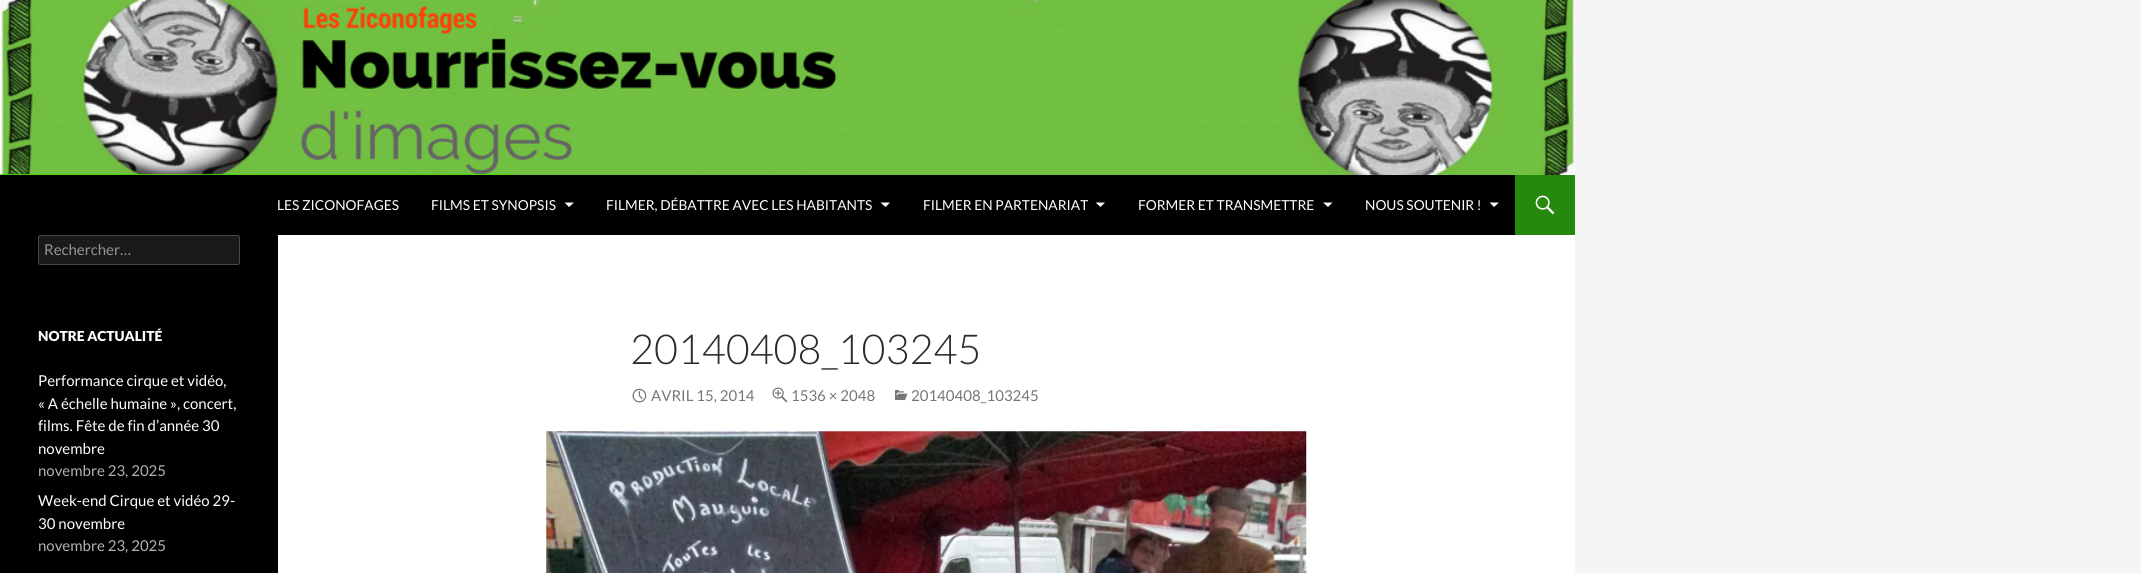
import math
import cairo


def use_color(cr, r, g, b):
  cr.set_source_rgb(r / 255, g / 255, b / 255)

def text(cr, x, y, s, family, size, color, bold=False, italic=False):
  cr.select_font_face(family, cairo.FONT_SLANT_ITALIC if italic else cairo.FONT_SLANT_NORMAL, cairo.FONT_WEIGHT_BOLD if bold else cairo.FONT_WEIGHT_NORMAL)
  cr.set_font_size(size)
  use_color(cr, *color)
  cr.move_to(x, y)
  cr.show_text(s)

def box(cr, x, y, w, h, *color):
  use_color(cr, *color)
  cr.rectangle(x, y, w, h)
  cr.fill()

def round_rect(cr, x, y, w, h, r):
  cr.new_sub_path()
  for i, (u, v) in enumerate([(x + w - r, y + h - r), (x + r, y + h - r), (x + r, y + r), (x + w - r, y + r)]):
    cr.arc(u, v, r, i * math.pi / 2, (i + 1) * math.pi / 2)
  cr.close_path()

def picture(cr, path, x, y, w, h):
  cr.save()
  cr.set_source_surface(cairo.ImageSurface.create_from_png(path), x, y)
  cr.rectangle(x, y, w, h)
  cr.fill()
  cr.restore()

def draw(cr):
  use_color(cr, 245, 245, 245)
  cr.paint()
  box(cr, 278, 235, 1297, 338, 255, 255, 255)
  picture(cr, "img_01.png", 0, 0, 1575, 175)
  box(cr, 0, 175, 1515, 60, 0, 0, 0)
  use_color(cr, 255, 255, 255)
  cr.new_path()
  cr.move_to(564.5, 202.5)
  cr.line_to(574, 202.5)
  cr.line_to(569, 207)
  cr.close_path()
  cr.fill()
  cr.new_path()
  cr.move_to(880.5, 202.5)
  cr.line_to(890, 202.5)
  cr.line_to(885.5, 207)
  cr.close_path()
  cr.fill()
  cr.new_path()
  cr.move_to(1095.5, 202.5)
  cr.line_to(1105, 202.5)
  cr.line_to(1100.5, 207)
  cr.close_path()
  cr.fill()
  cr.new_path()
  cr.move_to(1323, 202.5)
  cr.line_to(1332.5, 202.5)
  cr.line_to(1328, 207)
  cr.close_path()
  cr.fill()
  cr.new_path()
  cr.move_to(1489.5, 202.5)
  cr.line_to(1499, 202.5)
  cr.line_to(1494, 207)
  cr.close_path()
  cr.fill()
  box(cr, 1515, 175, 60, 60, 36, 137, 13)
  picture(cr, "img_02.png", 1535, 195, 20, 20)
  box(cr, 0, 235, 278, 338, 0, 0, 0)
  use_color(cr, 26, 26, 26)
  round_rect(cr, 38, 235, 202, 30, 2.5)
  cr.fill()
  round_rect(cr, 38.5, 235.5, 201, 29, 2)
  cr.set_source_rgba(1, 1, 1, 0.2)
  cr.set_line_width(1)
  cr.stroke()
  picture(cr, "img_03.png", 632, 388, 15, 15)
  picture(cr, "img_04.png", 772, 387, 16, 16)
  picture(cr, "img_05.png", 895, 390, 13, 10)
  picture(cr, "img_06.png", 546, 431, 761, 142)
  text(cr, 277, 210, "LES ZICONOFAGES", "Lato", 13.75, (255, 255, 255))
  text(cr, 431, 210, "FILMS ET SYNOPSIS", "Lato", 13.75, (255, 255, 255))
  text(cr, 606, 210, "FILMER, DÉBATTRE AVEC LES HABITANTS", "Lato", 13.75, (255, 255, 255))
  text(cr, 923, 210, "FILMER EN PARTENARIAT", "Lato", 13.75, (255, 255, 255))
  text(cr, 1138, 210, "FORMER ET TRANSMETTRE", "Lato", 13.75, (255, 255, 255))
  text(cr, 1365, 210, "NOUS SOUTENIR !", "Lato", 13.75, (255, 255, 255))
  text(cr, 44, 255, "Rechercher…", "Lato", 15, (147, 147, 147))
  text(cr, 38, 341, "NOTRE ACTUALITÉ", "Lato Black", 13.75, (255, 255, 255))
  text(cr, 38, 386, "Performance cirque et vidéo,", "Lato", 15, (255, 255, 255))
  text(cr, 38, 409, "« A échelle humaine », concert,", "Lato", 15, (255, 255, 255))
  text(cr, 38, 431, "films. Fête de fin d’année 30", "Lato", 15, (255, 255, 255))
  text(cr, 38, 454, "novembre", "Lato", 15, (255, 255, 255))
  text(cr, 38, 476, "novembre 23, 2025", "Lato", 15, (179, 179, 179))
  text(cr, 38, 506, "Week-end Cirque et vidéo 29-", "Lato", 15, (255, 255, 255))
  text(cr, 38, 529, "30 novembre", "Lato", 15, (255, 255, 255))
  text(cr, 38, 551, "novembre 23, 2025", "Lato", 15, (179, 179, 179))
  text(cr, 630, 364, "20140408_103245", "Lato Light", 41.25, (43, 43, 43))
  text(cr, 651, 401, "AVRIL 15, 2014", "Lato", 15, (118, 118, 118))
  text(cr, 791, 401, "1536 × 2048", "Lato", 15, (118, 118, 118))
  text(cr, 911, 401, "20140408_103245", "Lato", 15, (118, 118, 118))


surface = cairo.ImageSurface(cairo.FORMAT_RGB24, 2141, 573)
cr = cairo.Context(surface)
options = cairo.FontOptions()
options.set_hint_metrics(cairo.HINT_METRICS_OFF)
options.set_hint_style(cairo.HINT_STYLE_NONE)
cr.set_font_options(options)
cr.set_miter_limit(4)
draw(cr)
surface.write_to_png("out.png")
